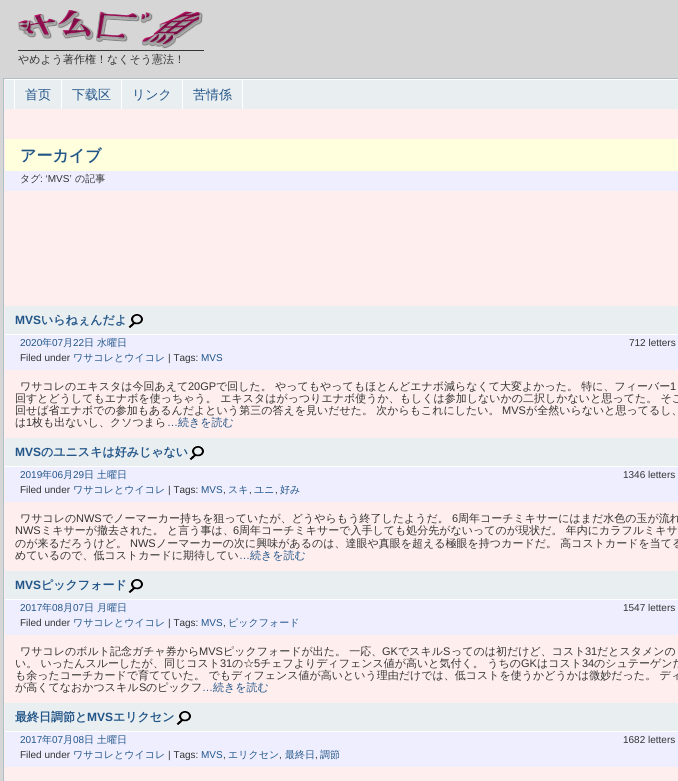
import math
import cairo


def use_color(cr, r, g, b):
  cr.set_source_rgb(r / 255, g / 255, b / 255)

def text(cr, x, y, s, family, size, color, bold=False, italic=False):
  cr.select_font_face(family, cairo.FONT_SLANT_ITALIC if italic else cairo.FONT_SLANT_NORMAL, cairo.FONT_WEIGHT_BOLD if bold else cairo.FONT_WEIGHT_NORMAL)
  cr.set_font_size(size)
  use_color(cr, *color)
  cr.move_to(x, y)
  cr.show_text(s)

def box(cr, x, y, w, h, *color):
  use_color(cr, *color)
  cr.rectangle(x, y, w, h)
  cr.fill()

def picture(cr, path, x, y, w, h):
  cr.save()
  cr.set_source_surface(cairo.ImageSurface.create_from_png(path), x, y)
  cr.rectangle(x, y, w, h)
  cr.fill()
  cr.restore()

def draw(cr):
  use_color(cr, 214, 214, 214)
  cr.paint()
  picture(cr, "img_01.png", 18, 10, 185, 39)
  box(cr, 18, 50, 186, 1, 51, 51, 51)
  use_color(cr, 255, 238, 238)
  cr.rectangle(3.5, 78.5, 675, 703)
  cr.fill_preserve()
  use_color(cr, 176, 190, 199)
  cr.set_line_width(1)
  cr.stroke()
  box(cr, 5, 80, 673, 29, 233, 238, 241)
  box(cr, 5, 79, 673, 1, 255, 255, 255)
  box(cr, 61, 80, 1, 29, 255, 255, 255)
  box(cr, 14, 80, 1, 29, 255, 255, 255)
  box(cr, 121, 80, 1, 29, 255, 255, 255)
  box(cr, 182, 80, 1, 29, 255, 255, 255)
  box(cr, 242, 80, 1, 29, 255, 255, 255)
  box(cr, 5, 139, 673, 32, 255, 255, 221)
  box(cr, 5, 171, 673, 20, 238, 238, 255)
  box(cr, 5, 306, 673, 28, 233, 238, 241)
  box(cr, 5, 334, 673, 1, 255, 255, 255)
  picture(cr, "img_02.png", 128, 314, 15, 14)
  box(cr, 5, 335, 673, 35, 238, 238, 255)
  box(cr, 5, 438, 673, 28, 233, 238, 241)
  box(cr, 5, 466, 673, 1, 255, 255, 255)
  picture(cr, "img_02.png", 189, 446, 15, 14)
  box(cr, 5, 467, 673, 35, 238, 238, 255)
  box(cr, 5, 571, 673, 28, 233, 238, 241)
  box(cr, 5, 599, 673, 1, 255, 255, 255)
  picture(cr, "img_02.png", 128, 579, 15, 14)
  box(cr, 5, 600, 673, 35, 238, 238, 255)
  box(cr, 5, 703, 673, 28, 233, 238, 241)
  box(cr, 5, 731, 673, 1, 255, 255, 255)
  picture(cr, "img_02.png", 176, 711, 15, 14)
  box(cr, 5, 732, 673, 35, 238, 238, 255)
  text(cr, 18, 63, "やめよう著作権！なくそう憲法！", "WenQuanYi Zen Hei Medium", 11, (51, 51, 51))
  text(cr, 25, 99, "首页", "WenQuanYi Zen Hei Medium", 13, (34, 85, 136))
  text(cr, 72, 99, "下载区", "WenQuanYi Zen Hei Medium", 13, (34, 85, 136))
  text(cr, 132, 99, "リンク", "WenQuanYi Zen Hei Medium", 13, (34, 85, 136))
  text(cr, 193, 99, "苦情係", "WenQuanYi Zen Hei Medium", 13, (34, 85, 136))
  text(cr, 20, 161, "アーカイブ", "WenQuanYi Zen Hei", 16, (34, 85, 136), bold=True)
  text(cr, 20, 182, "タグ", "WenQuanYi Zen Hei Medium", 10, (51, 51, 51))
  text(cr, 40, 182, ": ‘MVS’", "Liberation Sans", 10, (51, 51, 51))
  text(cr, 75, 182, "の記事", "WenQuanYi Zen Hei Medium", 10, (51, 51, 51))
  text(cr, 15, 324, "MVS", "Liberation Sans", 12, (34, 85, 136), bold=True)
  text(cr, 41, 324, "いらねぇんだよ", "WenQuanYi Zen Hei", 12, (34, 85, 136), bold=True)
  text(cr, 20, 346, "2020", "Liberation Sans", 10, (34, 85, 136))
  text(cr, 42, 346, "年", "WenQuanYi Zen Hei Medium", 10, (34, 85, 136))
  text(cr, 52, 346, "07", "Liberation Sans", 10, (34, 85, 136))
  text(cr, 63, 346, "月", "WenQuanYi Zen Hei Medium", 10, (34, 85, 136))
  text(cr, 73, 346, "22", "Liberation Sans", 10, (34, 85, 136))
  text(cr, 84, 346, "日 水曜日", "WenQuanYi Zen Hei Medium", 10, (34, 85, 136))
  text(cr, 20, 361, "Filed under", "Liberation Sans", 10, (51, 51, 51))
  text(cr, 73, 361, "ワサコレとウイコレ", "WenQuanYi Zen Hei Medium", 10, (34, 85, 136))
  text(cr, 168, 361, "| Tags:", "Liberation Sans", 10, (51, 51, 51))
  text(cr, 201, 361, "MVS", "Liberation Sans", 10, (34, 85, 136))
  text(cr, 629, 346, "712 letters", "Liberation Sans", 10, (51, 51, 51))
  text(cr, 20, 390, "ワサコレのエキスタは今回あえて", "WenQuanYi Zen Hei Medium", 11, (51, 51, 51))
  text(cr, 188, 390, "20GP", "Liberation Sans", 11, (51, 51, 51))
  text(cr, 216, 390, "で回した。 やってもやってもほとんどエナボ減らなくて大変よかった。 特に、フィーバー", "WenQuanYi Zen Hei Medium", 11, (51, 51, 51))
  text(cr, 670, 390, "1", "Liberation Sans", 11, (51, 51, 51))
  text(cr, 15, 402, "回すとどうしてもエナボを使っちゃう。 エキスタはがっつりエナボ使うか、もしくは参加しないかの二択しかないと思ってた。 そこ", "WenQuanYi Zen Hei Medium", 11, (51, 51, 51))
  text(cr, 15, 414, "回せば省エナボでの参加もあるんだよという第三の答えを見いだせた。 次からもこれにしたい。", "WenQuanYi Zen Hei Medium", 11, (51, 51, 51))
  text(cr, 502, 414, "MVS", "Liberation Sans", 11, (51, 51, 51))
  text(cr, 526, 414, "が全然いらないと思ってるし、", "WenQuanYi Zen Hei Medium", 11, (51, 51, 51))
  text(cr, 15, 426, "は", "WenQuanYi Zen Hei Medium", 11, (51, 51, 51))
  text(cr, 26, 426, "1", "Liberation Sans", 11, (51, 51, 51))
  text(cr, 32, 426, "枚も出ないし、クソつまら", "WenQuanYi Zen Hei Medium", 11, (51, 51, 51))
  text(cr, 167, 426, "…", "Liberation Sans", 11, (34, 85, 136))
  text(cr, 178, 426, "続きを読む", "WenQuanYi Zen Hei Medium", 11, (34, 85, 136))
  text(cr, 15, 456, "MVS", "Liberation Sans", 12, (34, 85, 136), bold=True)
  text(cr, 41, 456, "のユニスキは好みじゃない", "WenQuanYi Zen Hei", 12, (34, 85, 136), bold=True)
  text(cr, 20, 478, "2019", "Liberation Sans", 10, (34, 85, 136))
  text(cr, 42, 478, "年", "WenQuanYi Zen Hei Medium", 10, (34, 85, 136))
  text(cr, 52, 478, "06", "Liberation Sans", 10, (34, 85, 136))
  text(cr, 63, 478, "月", "WenQuanYi Zen Hei Medium", 10, (34, 85, 136))
  text(cr, 73, 478, "29", "Liberation Sans", 10, (34, 85, 136))
  text(cr, 84, 478, "日 土曜日", "WenQuanYi Zen Hei Medium", 10, (34, 85, 136))
  text(cr, 20, 493, "Filed under", "Liberation Sans", 10, (51, 51, 51))
  text(cr, 73, 493, "ワサコレとウイコレ", "WenQuanYi Zen Hei Medium", 10, (34, 85, 136))
  text(cr, 168, 493, "| Tags:", "Liberation Sans", 10, (51, 51, 51))
  text(cr, 201, 493, "MVS", "Liberation Sans", 10, (34, 85, 136))
  text(cr, 223, 493, ",", "Liberation Sans", 10, (51, 51, 51))
  text(cr, 228, 493, "スキ", "WenQuanYi Zen Hei Medium", 10, (34, 85, 136))
  text(cr, 249, 493, ",", "Liberation Sans", 10, (51, 51, 51))
  text(cr, 254, 493, "ユニ", "WenQuanYi Zen Hei Medium", 10, (34, 85, 136))
  text(cr, 275, 493, ",", "Liberation Sans", 10, (51, 51, 51))
  text(cr, 280, 493, "好み", "WenQuanYi Zen Hei Medium", 10, (34, 85, 136))
  text(cr, 623, 478, "1346 letters", "Liberation Sans", 10, (51, 51, 51))
  text(cr, 20, 522, "ワサコレの", "WenQuanYi Zen Hei Medium", 11, (51, 51, 51))
  text(cr, 76, 522, "NWS", "Liberation Sans", 11, (51, 51, 51))
  text(cr, 102, 522, "でノーマーカー持ちを狙っていたが、どうやらもう終了したようだ。", "WenQuanYi Zen Hei Medium", 11, (51, 51, 51))
  text(cr, 452, 522, "6", "Liberation Sans", 11, (51, 51, 51))
  text(cr, 458, 522, "周年コーチミキサーにはまだ水色の玉が流れ", "WenQuanYi Zen Hei Medium", 11, (51, 51, 51))
  text(cr, 15, 534, "NWS", "Liberation Sans", 11, (51, 51, 51))
  text(cr, 41, 534, "ミキサーが撤去された。 と言う事は、", "WenQuanYi Zen Hei Medium", 11, (51, 51, 51))
  text(cr, 233, 534, "6", "Liberation Sans", 11, (51, 51, 51))
  text(cr, 239, 534, "周年コーチミキサーで入手しても処分先がないってのが現状だ。 年内にカラフルミキサ", "WenQuanYi Zen Hei Medium", 11, (51, 51, 51))
  text(cr, 15, 547, "のが来るだろうけど。", "WenQuanYi Zen Hei Medium", 11, (51, 51, 51))
  text(cr, 130, 547, "NWS", "Liberation Sans", 11, (51, 51, 51))
  text(cr, 156, 547, "ノーマーカーの次に興味があるのは、達眼や真眼を超える極眼を持つカードだ。 高コストカードを当てる", "WenQuanYi Zen Hei Medium", 11, (51, 51, 51))
  text(cr, 15, 559, "めているので、低コストカードに期待してい", "WenQuanYi Zen Hei Medium", 11, (51, 51, 51))
  text(cr, 239, 559, "…", "Liberation Sans", 11, (34, 85, 136))
  text(cr, 250, 559, "続きを読む", "WenQuanYi Zen Hei Medium", 11, (34, 85, 136))
  text(cr, 15, 589, "MVS", "Liberation Sans", 12, (34, 85, 136), bold=True)
  text(cr, 41, 589, "ピックフォード", "WenQuanYi Zen Hei", 12, (34, 85, 136), bold=True)
  text(cr, 20, 611, "2017", "Liberation Sans", 10, (34, 85, 136))
  text(cr, 42, 611, "年", "WenQuanYi Zen Hei Medium", 10, (34, 85, 136))
  text(cr, 52, 611, "08", "Liberation Sans", 10, (34, 85, 136))
  text(cr, 63, 611, "月", "WenQuanYi Zen Hei Medium", 10, (34, 85, 136))
  text(cr, 73, 611, "07", "Liberation Sans", 10, (34, 85, 136))
  text(cr, 84, 611, "日 月曜日", "WenQuanYi Zen Hei Medium", 10, (34, 85, 136))
  text(cr, 20, 626, "Filed under", "Liberation Sans", 10, (51, 51, 51))
  text(cr, 73, 626, "ワサコレとウイコレ", "WenQuanYi Zen Hei Medium", 10, (34, 85, 136))
  text(cr, 168, 626, "| Tags:", "Liberation Sans", 10, (51, 51, 51))
  text(cr, 201, 626, "MVS", "Liberation Sans", 10, (34, 85, 136))
  text(cr, 223, 626, ",", "Liberation Sans", 10, (51, 51, 51))
  text(cr, 228, 626, "ピックフォード", "WenQuanYi Zen Hei Medium", 10, (34, 85, 136))
  text(cr, 623, 611, "1547 letters", "Liberation Sans", 10, (51, 51, 51))
  text(cr, 20, 655, "ワサコレのボルト記念ガチャ券から", "WenQuanYi Zen Hei Medium", 11, (51, 51, 51))
  text(cr, 199, 655, "MVS", "Liberation Sans", 11, (51, 51, 51))
  text(cr, 223, 655, "ピックフォードが出た。 一応、", "WenQuanYi Zen Hei Medium", 11, (51, 51, 51))
  text(cr, 382, 655, "GK", "Liberation Sans", 11, (51, 51, 51))
  text(cr, 398, 655, "でスキル", "WenQuanYi Zen Hei Medium", 11, (51, 51, 51))
  text(cr, 443, 655, "S", "Liberation Sans", 11, (51, 51, 51))
  text(cr, 451, 655, "ってのは初だけど、コスト", "WenQuanYi Zen Hei Medium", 11, (51, 51, 51))
  text(cr, 585, 655, "31", "Liberation Sans", 11, (51, 51, 51))
  text(cr, 597, 655, "だとスタメンの", "WenQuanYi Zen Hei Medium", 11, (51, 51, 51))
  text(cr, 15, 667, "い。 いったんスルーしたが、同じコスト", "WenQuanYi Zen Hei Medium", 11, (51, 51, 51))
  text(cr, 220, 667, "31", "Liberation Sans", 11, (51, 51, 51))
  text(cr, 232, 667, "の☆", "WenQuanYi Zen Hei Medium", 11, (51, 51, 51))
  text(cr, 254, 667, "5", "Liberation Sans", 11, (51, 51, 51))
  text(cr, 260, 667, "チェフよりディフェンス値が高いと気付く。 うちの", "WenQuanYi Zen Hei Medium", 11, (51, 51, 51))
  text(cr, 521, 667, "GK", "Liberation Sans", 11, (51, 51, 51))
  text(cr, 537, 667, "はコスト", "WenQuanYi Zen Hei Medium", 11, (51, 51, 51))
  text(cr, 582, 667, "34", "Liberation Sans", 11, (51, 51, 51))
  text(cr, 594, 667, "のシュテーゲンだ", "WenQuanYi Zen Hei Medium", 11, (51, 51, 51))
  text(cr, 15, 679, "も余ったコーチカードで育てていた。 でもディフェンス値が高いという理由だけでは、低コストを使うかどうかは微妙だった。 ディ", "WenQuanYi Zen Hei Medium", 11, (51, 51, 51))
  text(cr, 15, 691, "が高くてなおかつスキル", "WenQuanYi Zen Hei Medium", 11, (51, 51, 51))
  text(cr, 139, 691, "S", "Liberation Sans", 11, (51, 51, 51))
  text(cr, 146, 691, "のピックフ", "WenQuanYi Zen Hei Medium", 11, (51, 51, 51))
  text(cr, 202, 691, "…", "Liberation Sans", 11, (34, 85, 136))
  text(cr, 213, 691, "続きを読む", "WenQuanYi Zen Hei Medium", 11, (34, 85, 136))
  text(cr, 15, 721, "最終日調節と", "WenQuanYi Zen Hei", 12, (34, 85, 136), bold=True)
  text(cr, 87, 721, "MVS", "Liberation Sans", 12, (34, 85, 136), bold=True)
  text(cr, 113, 721, "エリクセン", "WenQuanYi Zen Hei", 12, (34, 85, 136), bold=True)
  text(cr, 20, 743, "2017", "Liberation Sans", 10, (34, 85, 136))
  text(cr, 42, 743, "年", "WenQuanYi Zen Hei Medium", 10, (34, 85, 136))
  text(cr, 52, 743, "07", "Liberation Sans", 10, (34, 85, 136))
  text(cr, 63, 743, "月", "WenQuanYi Zen Hei Medium", 10, (34, 85, 136))
  text(cr, 73, 743, "08", "Liberation Sans", 10, (34, 85, 136))
  text(cr, 84, 743, "日 土曜日", "WenQuanYi Zen Hei Medium", 10, (34, 85, 136))
  text(cr, 20, 758, "Filed under", "Liberation Sans", 10, (51, 51, 51))
  text(cr, 73, 758, "ワサコレとウイコレ", "WenQuanYi Zen Hei Medium", 10, (34, 85, 136))
  text(cr, 168, 758, "| Tags:", "Liberation Sans", 10, (51, 51, 51))
  text(cr, 201, 758, "MVS", "Liberation Sans", 10, (34, 85, 136))
  text(cr, 223, 758, ",", "Liberation Sans", 10, (51, 51, 51))
  text(cr, 228, 758, "エリクセン", "WenQuanYi Zen Hei Medium", 10, (34, 85, 136))
  text(cr, 279, 758, ",", "Liberation Sans", 10, (51, 51, 51))
  text(cr, 285, 758, "最終日", "WenQuanYi Zen Hei Medium", 10, (34, 85, 136))
  text(cr, 315, 758, ",", "Liberation Sans", 10, (51, 51, 51))
  text(cr, 320, 758, "調節", "WenQuanYi Zen Hei Medium", 10, (34, 85, 136))
  text(cr, 623, 743, "1682 letters", "Liberation Sans", 10, (51, 51, 51))


surface = cairo.ImageSurface(cairo.FORMAT_RGB24, 678, 781)
cr = cairo.Context(surface)
options = cairo.FontOptions()
options.set_hint_metrics(cairo.HINT_METRICS_OFF)
options.set_hint_style(cairo.HINT_STYLE_NONE)
cr.set_font_options(options)
cr.set_miter_limit(4)
draw(cr)
surface.write_to_png("out.png")
